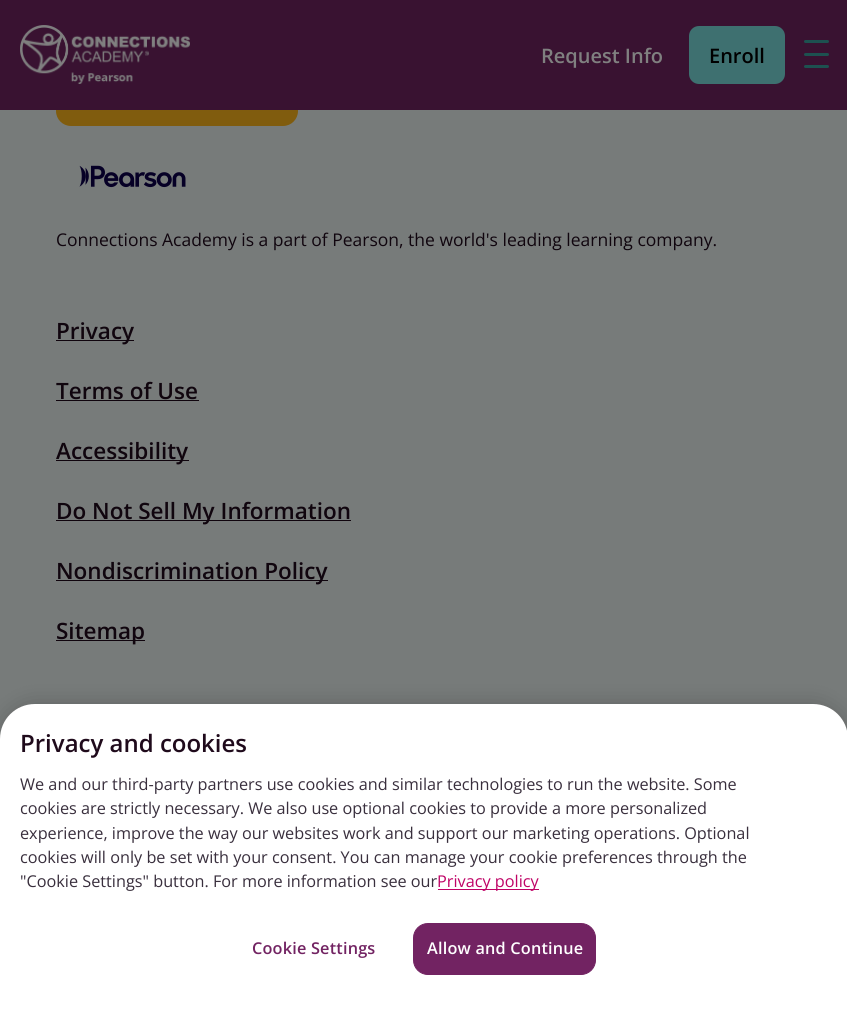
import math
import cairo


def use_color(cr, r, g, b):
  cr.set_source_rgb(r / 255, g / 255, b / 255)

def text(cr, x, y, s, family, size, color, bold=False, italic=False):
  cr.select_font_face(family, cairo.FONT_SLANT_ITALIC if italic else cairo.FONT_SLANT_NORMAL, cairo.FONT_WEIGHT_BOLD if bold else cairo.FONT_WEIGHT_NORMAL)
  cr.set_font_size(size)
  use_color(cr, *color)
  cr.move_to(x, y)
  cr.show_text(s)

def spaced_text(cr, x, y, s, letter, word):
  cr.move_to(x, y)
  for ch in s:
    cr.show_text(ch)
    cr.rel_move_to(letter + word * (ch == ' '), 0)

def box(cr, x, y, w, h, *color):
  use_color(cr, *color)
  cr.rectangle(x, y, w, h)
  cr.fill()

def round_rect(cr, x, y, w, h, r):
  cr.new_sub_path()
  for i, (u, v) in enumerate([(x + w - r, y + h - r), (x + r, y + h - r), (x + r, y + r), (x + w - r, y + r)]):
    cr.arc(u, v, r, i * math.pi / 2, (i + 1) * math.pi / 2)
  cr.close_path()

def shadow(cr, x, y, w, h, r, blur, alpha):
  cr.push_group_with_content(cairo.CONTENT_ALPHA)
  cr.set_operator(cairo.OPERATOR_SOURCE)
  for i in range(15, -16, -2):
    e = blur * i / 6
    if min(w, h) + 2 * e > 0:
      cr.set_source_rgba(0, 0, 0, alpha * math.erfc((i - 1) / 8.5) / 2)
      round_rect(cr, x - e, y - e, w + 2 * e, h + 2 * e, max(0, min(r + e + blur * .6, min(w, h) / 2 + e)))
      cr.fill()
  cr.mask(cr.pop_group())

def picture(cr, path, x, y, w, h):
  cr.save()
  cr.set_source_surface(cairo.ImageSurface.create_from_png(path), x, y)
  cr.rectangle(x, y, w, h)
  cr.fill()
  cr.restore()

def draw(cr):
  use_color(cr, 119, 123, 122)
  cr.paint()
  use_color(cr, 128, 92, 14)
  round_rect(cr, 56, 61, 242, 65, 15)
  cr.fill()
  box(cr, 0, 0, 847, 110, 57, 18, 49)
  picture(cr, "img_01.png", 20, 25, 170, 59)
  use_color(cr, 62, 112, 112)
  round_rect(cr, 689, 26, 96, 58, 10)
  cr.fill()
  use_color(cr, 29, 81, 80)
  round_rect(cr, 804, 53, 25, 3, 1.5)
  cr.fill()
  round_rect(cr, 804, 40, 25, 3, 1.5)
  cr.fill()
  round_rect(cr, 804, 65, 25, 3, 1.5)
  cr.fill()
  picture(cr, "img_02.png", 79, 165, 107, 23)
  box(cr, 56, 340, 78, 1, 16, 5, 14)
  box(cr, 56, 400, 143, 1, 16, 5, 14)
  box(cr, 56, 460, 133, 1, 16, 5, 14)
  box(cr, 56, 520, 295, 1, 16, 5, 14)
  box(cr, 56, 580, 272, 1, 16, 5, 14)
  box(cr, 56, 640, 89, 1, 16, 5, 14)
  use_color(cr, 0, 0, 0)
  shadow(cr, 0, 704, 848, 312, 35, 11, 0.2)
  use_color(cr, 255, 255, 255)
  cr.new_path()
  cr.move_to(35, 704)
  cr.line_to(813, 704)
  cr.curve_to(832.5, 704, 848, 719.5, 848, 739)
  cr.line_to(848, 1016)
  cr.line_to(0, 1016)
  cr.line_to(0, 739)
  cr.curve_to(0, 719.5, 15.5, 704, 35, 704)
  cr.close_path()
  cr.fill()
  box(cr, 438, 889, 101, 1, 191, 3, 102)
  use_color(cr, 114, 35, 98)
  round_rect(cr, 413.5, 923.5, 182, 51, 14.5)
  cr.fill_preserve()
  cr.set_line_width(1)
  cr.stroke()
  text(cr, 541, 63, "Request Info", "Open Sans SemiBold", 20, (128, 128, 128))
  text(cr, 709, 63, "Enroll", "Open Sans SemiBold", 20, (0, 0, 0))
  text(cr, 56, 246, "Connections Academy is a part of Pearson, the world's leading learning company.", "Open Sans", 17.5, (16, 5, 14))
  text(cr, 56, 339, "Privacy", "Open Sans SemiBold", 22.5, (16, 5, 14))
  text(cr, 56, 399, "Terms of Use", "Open Sans SemiBold", 22.5, (16, 5, 14))
  text(cr, 56, 459, "Accessibility", "Open Sans SemiBold", 22.5, (16, 5, 14))
  text(cr, 56, 519, "Do Not Sell My Information", "Open Sans SemiBold", 22.5, (16, 5, 14))
  text(cr, 56, 579, "Nondiscrimination Policy", "Open Sans SemiBold", 22.5, (16, 5, 14))
  text(cr, 56, 639, "Sitemap", "Open Sans SemiBold", 22.5, (16, 5, 14))
  text(cr, 20, 752, "Privacy and cookies", "Open Sans SemiBold", 24, (31, 10, 27))
  text(cr, 20, 790, "We and our third-party partners use cookies and similar technologies to run the website. Some", "Open Sans", 16.25, (57, 47, 61))
  text(cr, 20, 814, "cookies are strictly necessary. We also use optional cookies to provide a more personalized", "Open Sans", 16.25, (57, 47, 61))
  text(cr, 20, 839, "experience, improve the way our websites work and support our marketing operations. Optional", "Open Sans", 16.25, (57, 47, 61))
  text(cr, 20, 863, "cookies will only be set with your consent. You can manage your cookie preferences through the", "Open Sans", 16.25, (57, 47, 61))
  text(cr, 20, 887, "\"Cookie Settings\" button. For more information see our", "Open Sans", 16.25, (57, 47, 61))
  text(cr, 437, 887, "Privacy policy", "Open Sans", 16.25, (191, 3, 102))
  cr.select_font_face("Open Sans SemiBold")
  use_color(cr, 114, 35, 98)
  spaced_text(cr, 252, 954, "Cookie Settings", 0.2, 0)
  use_color(cr, 255, 255, 255)
  spaced_text(cr, 427, 954, "Allow and Continue", 0.2, 0)


surface = cairo.ImageSurface(cairo.FORMAT_RGB24, 847, 1016)
cr = cairo.Context(surface)
options = cairo.FontOptions()
options.set_hint_metrics(cairo.HINT_METRICS_OFF)
options.set_hint_style(cairo.HINT_STYLE_NONE)
cr.set_font_options(options)
cr.set_miter_limit(4)
draw(cr)
surface.write_to_png("out.png")
